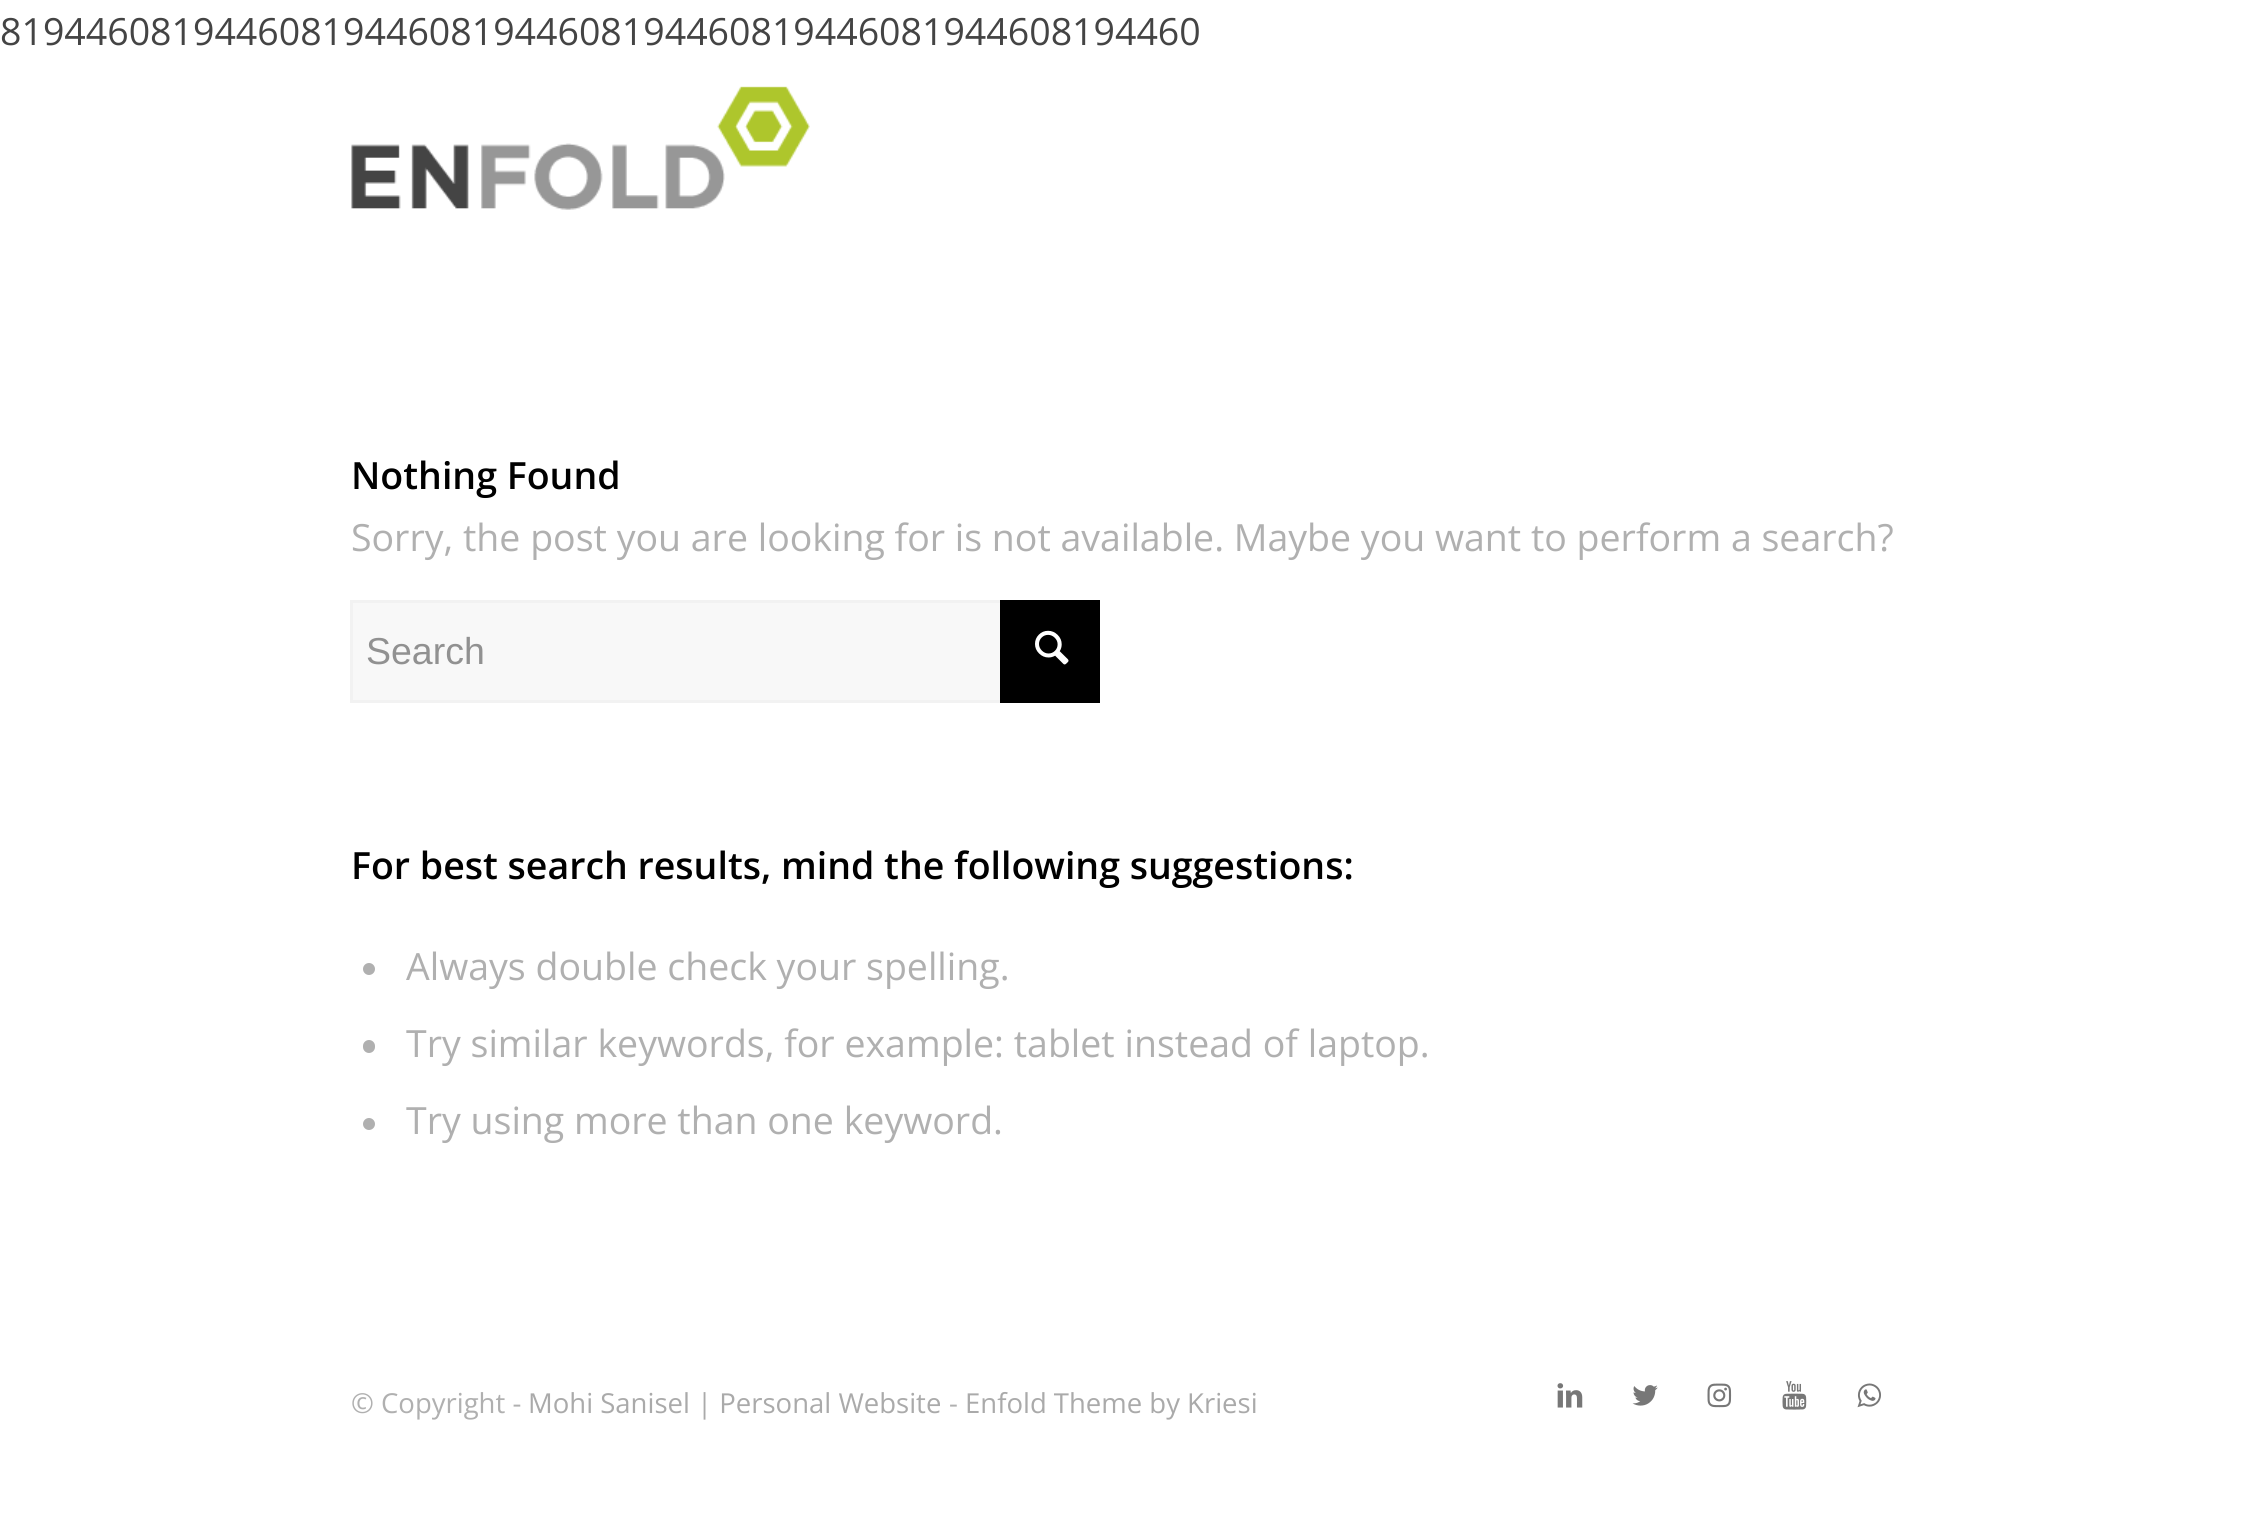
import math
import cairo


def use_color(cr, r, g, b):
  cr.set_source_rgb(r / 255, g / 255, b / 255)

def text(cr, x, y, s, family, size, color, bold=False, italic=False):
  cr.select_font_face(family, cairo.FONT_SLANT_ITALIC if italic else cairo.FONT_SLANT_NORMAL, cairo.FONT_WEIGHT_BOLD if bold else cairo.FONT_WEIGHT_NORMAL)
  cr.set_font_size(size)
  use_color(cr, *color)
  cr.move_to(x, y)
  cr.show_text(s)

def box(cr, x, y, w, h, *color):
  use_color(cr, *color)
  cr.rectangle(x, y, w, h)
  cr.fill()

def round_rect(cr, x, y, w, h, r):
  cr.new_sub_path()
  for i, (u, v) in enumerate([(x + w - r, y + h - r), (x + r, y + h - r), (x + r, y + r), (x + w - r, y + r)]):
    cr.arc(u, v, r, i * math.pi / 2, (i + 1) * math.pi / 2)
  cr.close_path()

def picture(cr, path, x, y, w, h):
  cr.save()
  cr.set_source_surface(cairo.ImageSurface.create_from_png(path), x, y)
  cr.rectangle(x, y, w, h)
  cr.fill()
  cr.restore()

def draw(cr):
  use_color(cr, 255, 255, 255)
  cr.paint()
  picture(cr, "img_01.png", 351, 86, 459, 124)
  box(cr, 353, 603, 647, 97, 248, 248, 248)
  cr.rectangle(351.5, 601.5, 747, 100)
  use_color(cr, 242, 242, 242)
  cr.set_line_width(3)
  cr.stroke()
  box(cr, 1000, 600, 100, 103, 0, 0, 0)
  picture(cr, "img_02.png", 1035, 630, 34, 35)
  use_color(cr, 176, 176, 176)
  cr.arc(369, 969, 6, 0, 2 * math.pi)
  cr.fill()
  round_rect(cr, 363, 1040, 12, 13, 6)
  cr.fill()
  cr.arc(369, 1124, 6, 0, 2 * math.pi)
  cr.fill()
  picture(cr, "img_03.png", 1557, 1383, 26, 25)
  picture(cr, "img_04.png", 1632, 1385, 26, 21)
  picture(cr, "img_05.png", 1707, 1383, 25, 25)
  picture(cr, "img_06.png", 1782, 1381, 25, 29)
  picture(cr, "img_07.png", 1857, 1383, 24, 25)
  text(cr, 0, 45, "81944608194460819446081944608194460819446081944608194460", "Open Sans", 37.5, (68, 68, 68))
  text(cr, 351, 489, "Nothing Found", "Open Sans SemiBold", 37.5, (0, 0, 0))
  text(cr, 351, 551, "Sorry, the post you are looking for is not available. Maybe you want to perform a search?", "Open Sans", 37.5, (176, 176, 176))
  text(cr, 366, 664, "Search", "Liberation Sans", 37.5, (145, 145, 145))
  text(cr, 351, 879, "For best search results, mind the following suggestions:", "Open Sans SemiBold", 37.5, (0, 0, 0))
  text(cr, 406, 980, "Always double check your spelling.", "Open Sans", 37.5, (176, 176, 176))
  text(cr, 406, 1057, "Try similar keywords, for example: tablet instead of laptop.", "Open Sans", 37.5, (176, 176, 176))
  text(cr, 406, 1134, "Try using more than one keyword.", "Open Sans", 37.5, (176, 176, 176))
  text(cr, 351, 1413, "© Copyright -", "Open Sans", 27.5, (176, 176, 176))
  text(cr, 528, 1413, "Mohi Sanisel | Personal Website", "Open Sans", 27.5, (170, 170, 170))
  text(cr, 949, 1413, "-", "Open Sans", 27.5, (176, 176, 176))
  text(cr, 965, 1413, "Enfold Theme by Kriesi", "Open Sans", 27.5, (170, 170, 170))


surface = cairo.ImageSurface(cairo.FORMAT_RGB24, 2257, 1516)
cr = cairo.Context(surface)
options = cairo.FontOptions()
options.set_hint_metrics(cairo.HINT_METRICS_OFF)
options.set_hint_style(cairo.HINT_STYLE_NONE)
cr.set_font_options(options)
cr.set_miter_limit(4)
draw(cr)
surface.write_to_png("out.png")
